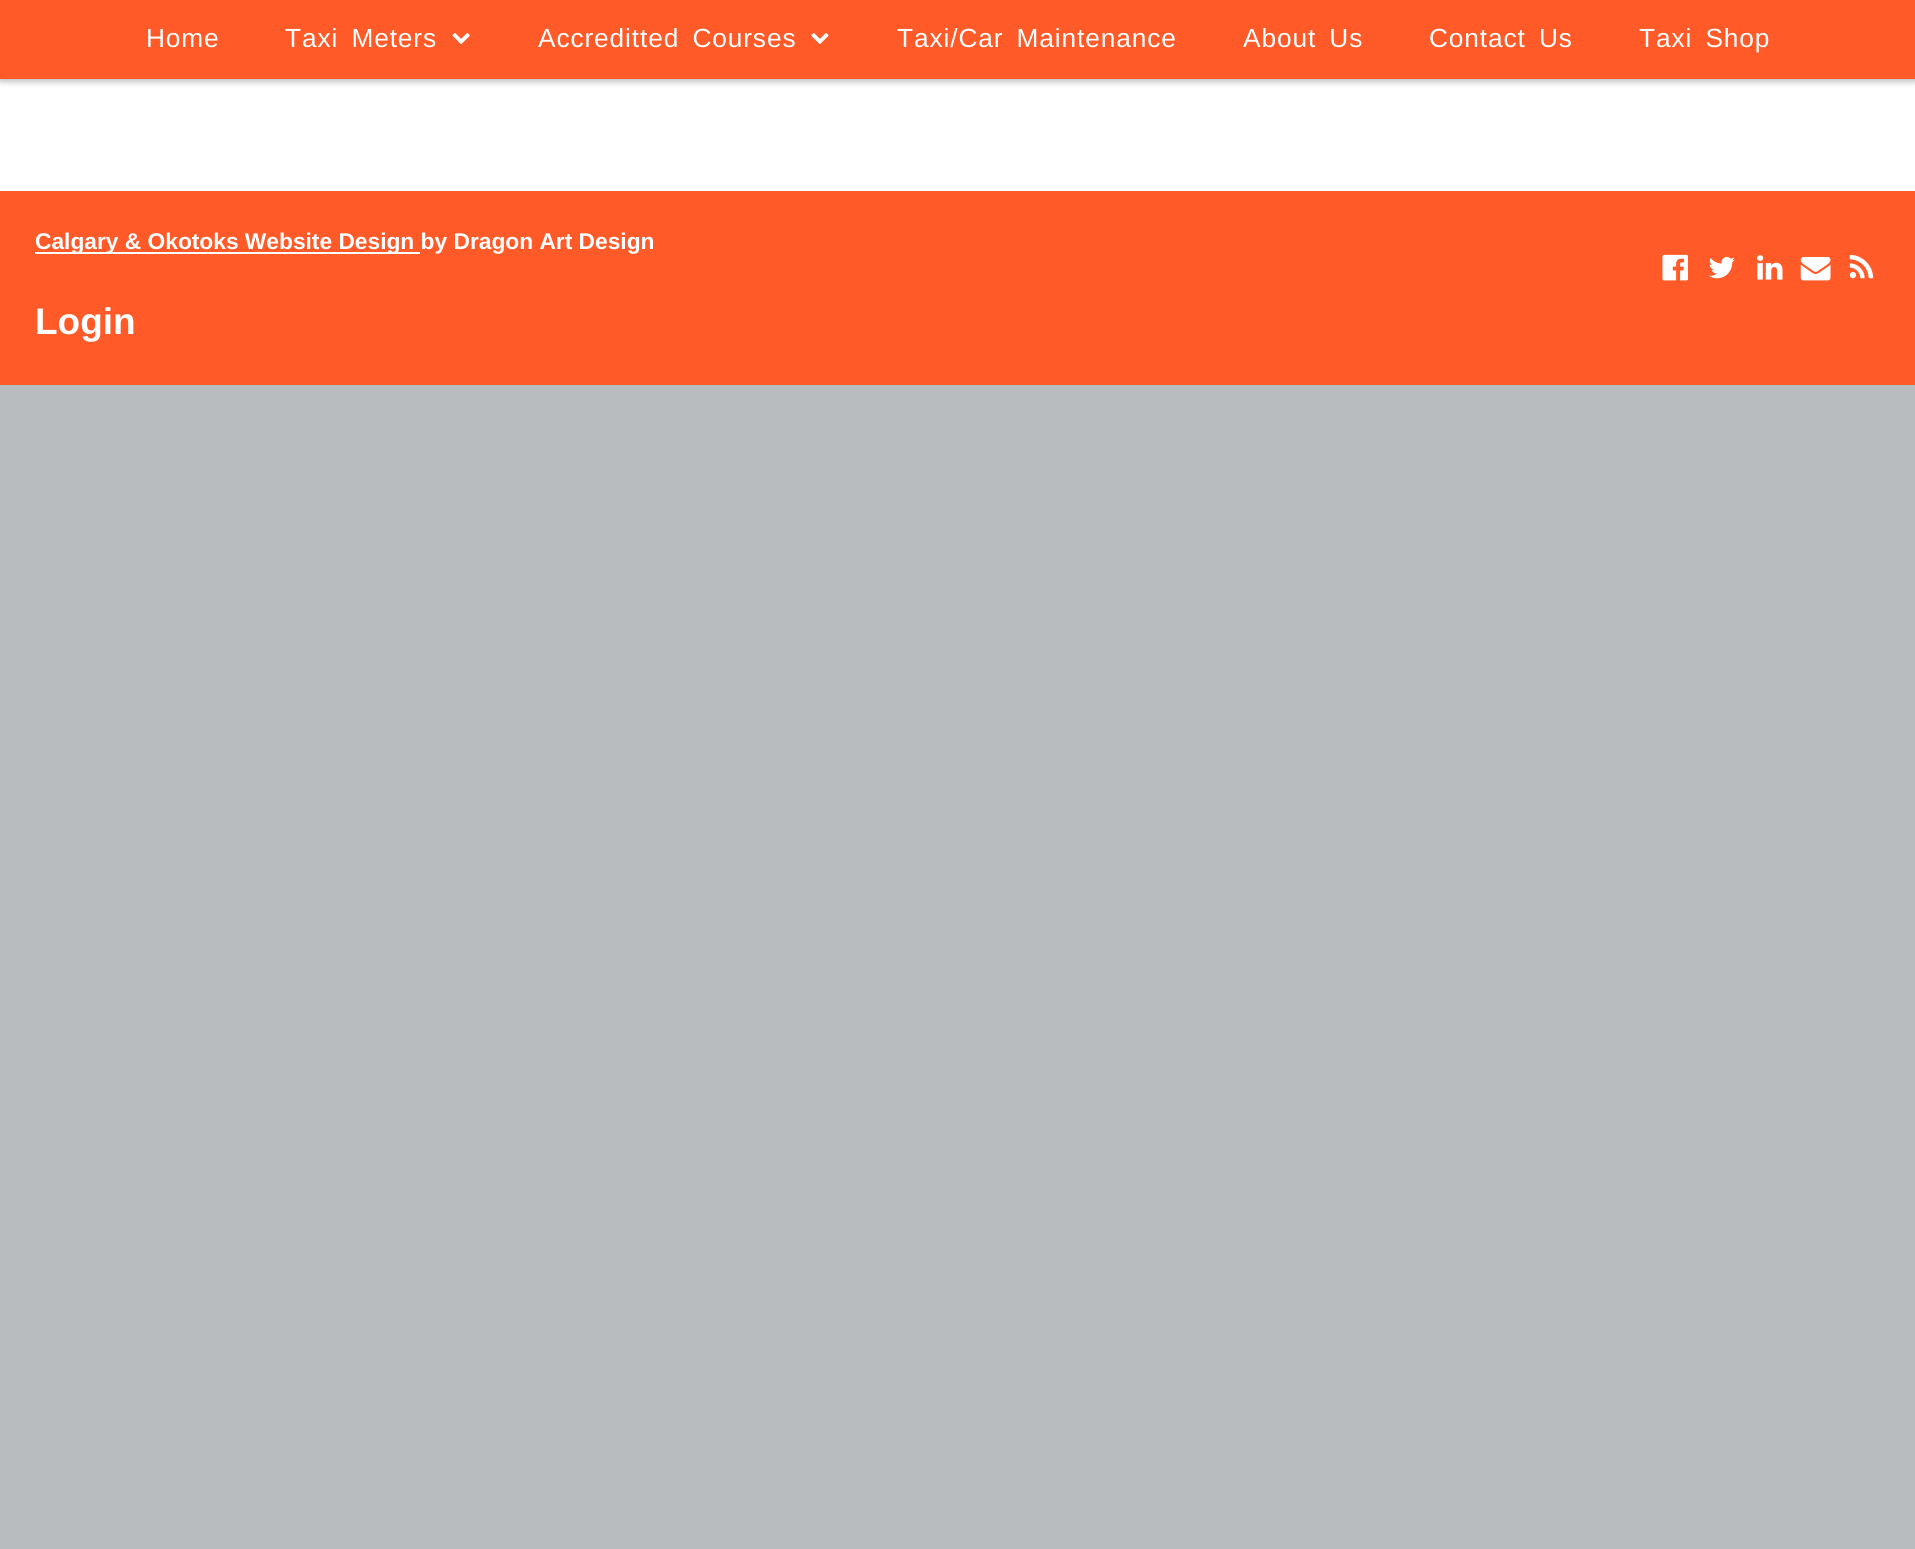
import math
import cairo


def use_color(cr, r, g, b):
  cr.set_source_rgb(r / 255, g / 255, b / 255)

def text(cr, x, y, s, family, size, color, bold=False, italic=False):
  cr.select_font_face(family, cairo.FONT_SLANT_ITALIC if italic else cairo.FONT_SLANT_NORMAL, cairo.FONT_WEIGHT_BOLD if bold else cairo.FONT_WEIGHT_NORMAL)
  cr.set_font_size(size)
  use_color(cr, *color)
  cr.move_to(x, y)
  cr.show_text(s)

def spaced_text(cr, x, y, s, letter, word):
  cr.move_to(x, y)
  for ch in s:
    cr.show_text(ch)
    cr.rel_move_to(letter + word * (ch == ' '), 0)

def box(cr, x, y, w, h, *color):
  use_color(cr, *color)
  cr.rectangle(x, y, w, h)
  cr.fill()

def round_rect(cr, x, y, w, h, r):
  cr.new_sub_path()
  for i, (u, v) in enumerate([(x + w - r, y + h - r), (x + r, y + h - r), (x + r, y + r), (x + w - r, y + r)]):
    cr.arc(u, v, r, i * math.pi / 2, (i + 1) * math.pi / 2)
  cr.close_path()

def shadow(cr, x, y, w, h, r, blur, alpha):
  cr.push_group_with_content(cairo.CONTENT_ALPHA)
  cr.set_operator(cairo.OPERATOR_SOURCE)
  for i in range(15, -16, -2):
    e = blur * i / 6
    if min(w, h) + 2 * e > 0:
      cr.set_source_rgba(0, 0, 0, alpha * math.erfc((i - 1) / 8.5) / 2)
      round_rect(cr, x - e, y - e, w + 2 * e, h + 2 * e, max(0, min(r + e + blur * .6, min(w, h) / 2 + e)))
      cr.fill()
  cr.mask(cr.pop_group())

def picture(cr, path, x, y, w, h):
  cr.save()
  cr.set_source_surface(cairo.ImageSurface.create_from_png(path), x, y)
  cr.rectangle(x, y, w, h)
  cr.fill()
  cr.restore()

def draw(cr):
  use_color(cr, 185, 188, 191)
  cr.paint()
  box(cr, 0, 0, 1915, 79, 255, 90, 40)
  box(cr, 0, 79, 1915, 112, 255, 255, 255)
  cr.save()
  cr.set_fill_rule(cairo.FILL_RULE_EVEN_ODD)
  cr.new_path()
  cr.move_to(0, 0)
  cr.line_to(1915, 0)
  cr.line_to(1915, 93)
  cr.line_to(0, 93)
  cr.close_path()
  cr.move_to(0, 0)
  cr.line_to(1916, 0)
  cr.line_to(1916, 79)
  cr.line_to(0, 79)
  cr.close_path()
  cr.clip()
  use_color(cr, 0, 0, 0)
  shadow(cr, 0, 2, 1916, 79, 0, 3.5, 0.3)
  cr.restore()
  picture(cr, "img_01.png", 452, 33, 18, 11)
  picture(cr, "img_02.png", 811, 33, 18, 11)
  box(cr, 0, 191, 1915, 194, 255, 90, 40)
  box(cr, 35, 252, 385, 2, 255, 255, 255)
  picture(cr, "img_03.png", 1662, 254, 26, 27)
  picture(cr, "img_04.png", 1709, 257, 26, 22)
  picture(cr, "img_05.png", 1757, 255, 26, 25)
  picture(cr, "img_06.png", 1800, 257, 31, 24)
  picture(cr, "img_07.png", 1849, 254, 25, 25)
  cr.select_font_face("Liberation Sans")
  cr.set_font_size(26.25)
  spaced_text(cr, 146, 47, "Home", 0.9, 0)
  spaced_text(cr, 285, 47, "Taxi Meters", 0.9, 5)
  spaced_text(cr, 538, 47, "Accreditted Courses", 0.9, 5)
  spaced_text(cr, 897, 47, "Taxi/Car Maintenance", 0.9, 5)
  spaced_text(cr, 1243, 47, "About Us", 0.9, 5)
  spaced_text(cr, 1429, 47, "Contact Us", 0.9, 5)
  spaced_text(cr, 1639, 47, "Taxi Shop", 0.9, 5)
  text(cr, 35, 249, "Calgary & Okotoks Website Design by Dragon Art Design", "Liberation Sans", 22.75, (255, 255, 255), bold=True)
  text(cr, 35, 334, "Login", "Liberation Sans", 37, (255, 255, 255), bold=True)


surface = cairo.ImageSurface(cairo.FORMAT_RGB24, 1915, 1549)
cr = cairo.Context(surface)
options = cairo.FontOptions()
options.set_hint_metrics(cairo.HINT_METRICS_OFF)
options.set_hint_style(cairo.HINT_STYLE_NONE)
cr.set_font_options(options)
cr.set_miter_limit(4)
draw(cr)
surface.write_to_png("out.png")
